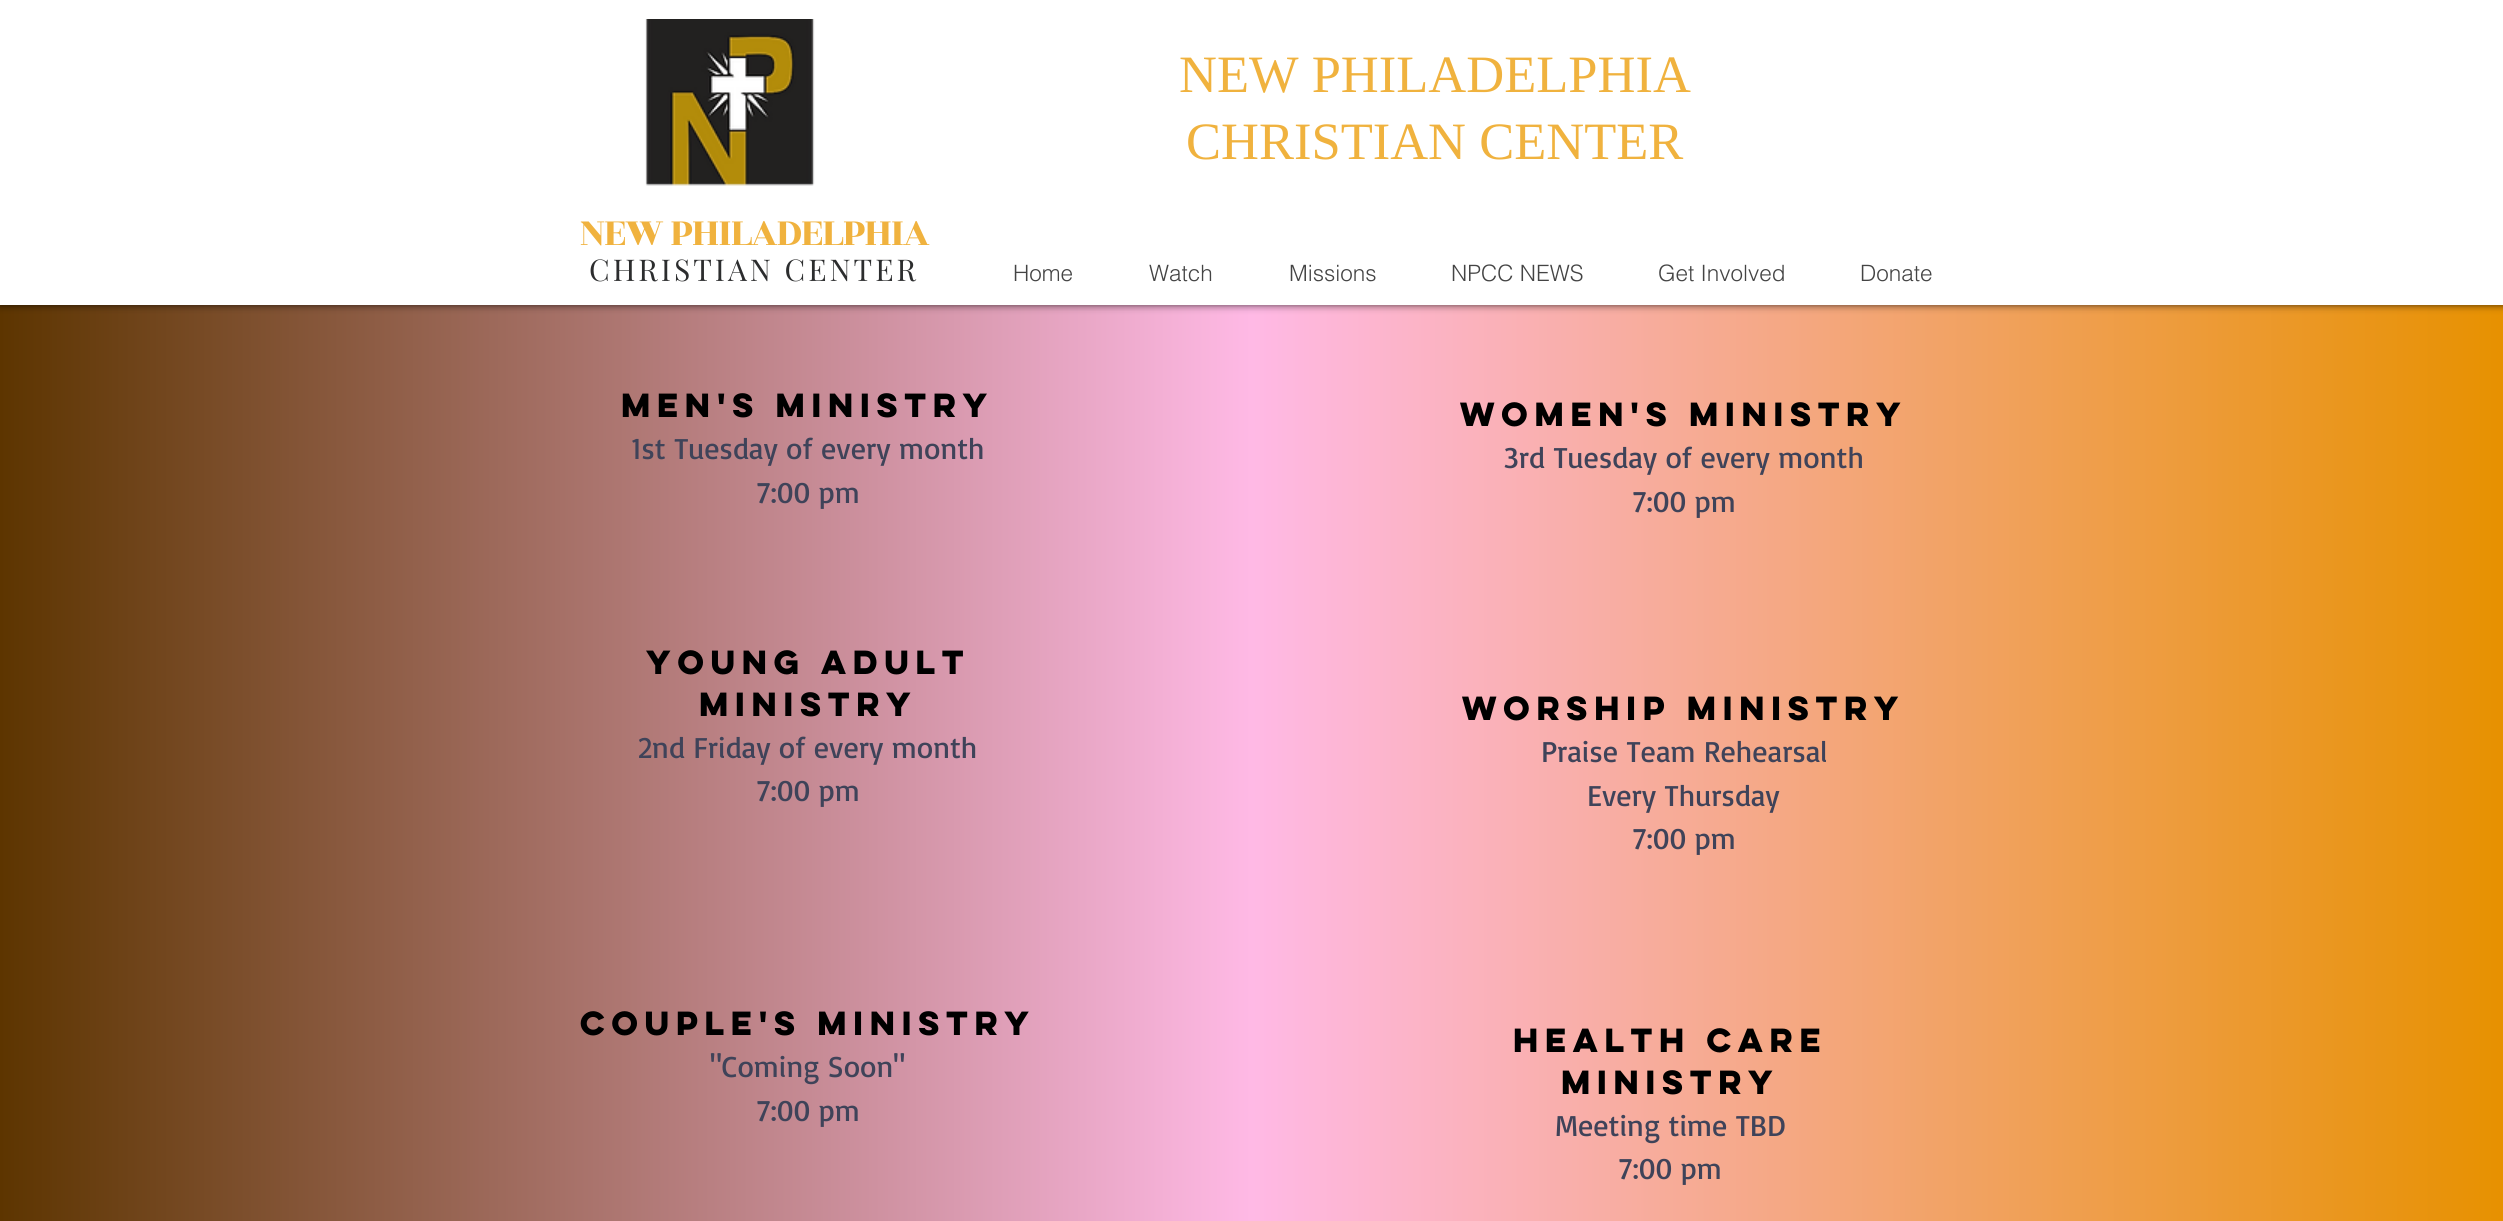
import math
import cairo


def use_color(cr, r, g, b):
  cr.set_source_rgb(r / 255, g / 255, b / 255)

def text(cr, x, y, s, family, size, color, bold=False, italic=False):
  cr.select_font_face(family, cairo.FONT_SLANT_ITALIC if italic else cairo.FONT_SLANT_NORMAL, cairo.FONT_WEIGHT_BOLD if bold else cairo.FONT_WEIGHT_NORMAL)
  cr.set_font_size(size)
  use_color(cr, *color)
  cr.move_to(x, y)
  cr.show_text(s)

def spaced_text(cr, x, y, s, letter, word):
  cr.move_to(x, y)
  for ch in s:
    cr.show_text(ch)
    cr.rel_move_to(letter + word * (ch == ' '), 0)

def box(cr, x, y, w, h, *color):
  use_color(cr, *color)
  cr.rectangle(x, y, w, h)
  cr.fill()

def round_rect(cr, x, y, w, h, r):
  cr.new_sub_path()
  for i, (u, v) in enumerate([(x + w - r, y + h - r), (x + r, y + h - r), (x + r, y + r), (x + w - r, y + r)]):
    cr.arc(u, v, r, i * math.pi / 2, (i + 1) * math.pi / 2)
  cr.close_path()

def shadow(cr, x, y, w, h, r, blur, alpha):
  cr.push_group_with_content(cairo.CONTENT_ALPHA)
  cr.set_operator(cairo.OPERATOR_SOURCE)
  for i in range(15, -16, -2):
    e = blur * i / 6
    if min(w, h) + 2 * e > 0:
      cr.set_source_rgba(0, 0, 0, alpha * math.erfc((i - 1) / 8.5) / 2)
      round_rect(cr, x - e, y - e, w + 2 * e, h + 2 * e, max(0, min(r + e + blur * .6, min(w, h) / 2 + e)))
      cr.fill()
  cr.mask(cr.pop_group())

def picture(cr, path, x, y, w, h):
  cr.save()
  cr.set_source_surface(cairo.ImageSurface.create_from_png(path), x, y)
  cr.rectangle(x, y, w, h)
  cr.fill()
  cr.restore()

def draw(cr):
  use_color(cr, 255, 255, 255)
  cr.paint()
  gradient = cairo.LinearGradient(0, 795, 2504, 795)
  gradient.add_color_stop_rgba(0, 0.365, 0.208, 0, 1)
  gradient.add_color_stop_rgba(0.5, 1, 0.725, 0.898, 1)
  gradient.add_color_stop_rgba(1, 0.906, 0.569, 0, 1)
  cr.set_source(gradient)
  cr.rectangle(0, 305, 2503, 916)
  cr.fill()
  use_color(cr, 0, 0, 0)
  shadow(cr, 0, 0, 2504, 305, 0, 4, 0.7)
  box(cr, 0, 0, 2503, 305, 255, 255, 255)
  picture(cr, "img_01.png", 645, 19, 170, 167)
  text(cr, 1179, 92, "NEW PHILADELPHIA", "Liberation Serif", 52.5, (240, 178, 62))
  text(cr, 1186, 159, "CHRISTIAN CENTER", "Liberation Serif", 52.5, (240, 178, 62))
  cr.select_font_face("Rozha One")
  cr.set_font_size(42)
  spaced_text(cr, 580, 245, "NEW PHILADELPHIA", -1.5, 0)
  cr.select_font_face("Playfair Display")
  cr.set_font_size(30)
  use_color(cr, 44, 45, 46)
  spaced_text(cr, 589, 281, "CHRISTIAN CENTER", 3, 0)
  text(cr, 1013, 281, "Home", "helvetica Light", 22.5, (68, 68, 68))
  text(cr, 1149, 281, "Watch", "helvetica Light", 22.5, (68, 68, 68))
  text(cr, 1289, 281, "Missions", "helvetica Light", 22.5, (68, 68, 68))
  text(cr, 1451, 281, "NPCC NEWS", "helvetica Light", 22.5, (68, 68, 68))
  text(cr, 1658, 281, "Get Involved", "helvetica Light", 22.5, (68, 68, 68))
  text(cr, 1860, 281, "Donate", "helvetica Light", 22.5, (68, 68, 68))
  text(cr, 621, 417, "men's Ministry", "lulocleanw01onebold", 30, (0, 0, 0), bold=True)
  text(cr, 631, 459, "1st Tuesday of every month", "Basic", 30, (63, 67, 89))
  text(cr, 756, 503, "7:00 pm", "Basic", 30, (63, 67, 89))
  text(cr, 1460, 426, "Women's Ministry", "lulocleanw01onebold", 30, (0, 0, 0), bold=True)
  text(cr, 1504, 468, "3rd Tuesday of every month", "Basic", 30, (63, 67, 89))
  text(cr, 1632, 512, "7:00 pm", "Basic", 30, (63, 67, 89))
  text(cr, 646, 674, "young adult", "lulocleanw01onebold", 30, (0, 0, 0), bold=True)
  text(cr, 699, 716, "Ministry", "lulocleanw01onebold", 30, (0, 0, 0), bold=True)
  text(cr, 638, 758, "2nd Friday of every month", "Basic", 30, (63, 67, 89))
  text(cr, 756, 801, "7:00 pm", "Basic", 30, (63, 67, 89))
  text(cr, 1462, 720, "Worship Ministry", "lulocleanw01onebold", 30, (0, 0, 0), bold=True)
  text(cr, 1541, 762, "Praise Team Rehearsal", "Basic", 30, (63, 67, 89))
  text(cr, 1587, 806, "Every Thursday", "Basic", 30, (63, 67, 89))
  text(cr, 1632, 849, "7:00 pm", "Basic", 30, (63, 67, 89))
  text(cr, 580, 1035, "couple's Ministry", "lulocleanw01onebold", 30, (0, 0, 0), bold=True)
  text(cr, 710, 1077, "\"Coming Soon\"", "Basic", 30, (63, 67, 89))
  text(cr, 756, 1121, "7:00 pm", "Basic", 30, (63, 67, 89))
  text(cr, 1513, 1052, "HeaLTH cARE", "lulocleanw01onebold", 30, (0, 0, 0), bold=True)
  text(cr, 1561, 1094, "Ministry", "lulocleanw01onebold", 30, (0, 0, 0), bold=True)
  text(cr, 1555, 1136, "Meeting time TBD", "Basic", 30, (63, 67, 89))
  text(cr, 1618, 1179, "7:00 pm", "Basic", 30, (63, 67, 89))


surface = cairo.ImageSurface(cairo.FORMAT_RGB24, 2503, 1221)
cr = cairo.Context(surface)
options = cairo.FontOptions()
options.set_hint_metrics(cairo.HINT_METRICS_OFF)
options.set_hint_style(cairo.HINT_STYLE_NONE)
cr.set_font_options(options)
cr.set_miter_limit(4)
draw(cr)
surface.write_to_png("out.png")
